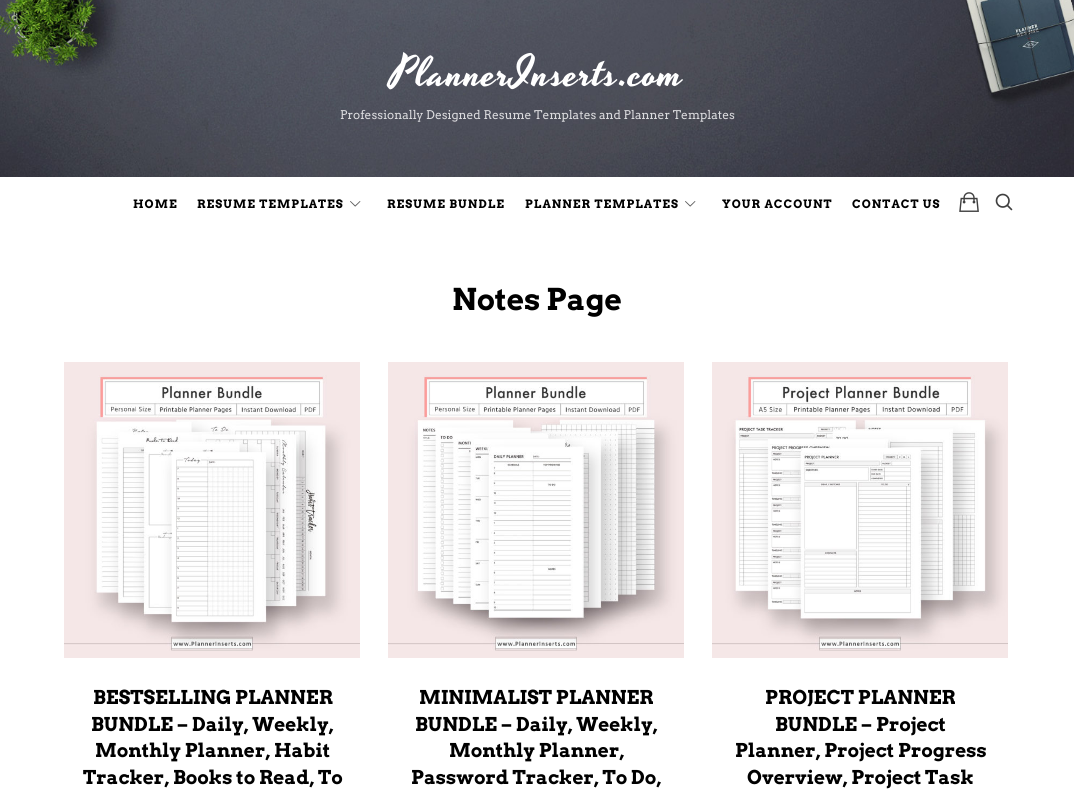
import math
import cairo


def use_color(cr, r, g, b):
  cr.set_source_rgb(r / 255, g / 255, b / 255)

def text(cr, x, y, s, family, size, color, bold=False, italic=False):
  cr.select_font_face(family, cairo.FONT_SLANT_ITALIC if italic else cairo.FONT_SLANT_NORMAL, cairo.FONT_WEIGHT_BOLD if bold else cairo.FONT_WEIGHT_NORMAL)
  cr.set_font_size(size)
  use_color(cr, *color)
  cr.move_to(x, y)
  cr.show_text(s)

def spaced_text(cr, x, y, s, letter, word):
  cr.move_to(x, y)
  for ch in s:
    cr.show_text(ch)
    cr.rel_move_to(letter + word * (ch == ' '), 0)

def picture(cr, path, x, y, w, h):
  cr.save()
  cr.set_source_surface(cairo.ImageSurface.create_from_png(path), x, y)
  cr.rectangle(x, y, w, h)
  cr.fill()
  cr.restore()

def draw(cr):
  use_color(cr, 255, 255, 255)
  cr.paint()
  picture(cr, "img_01.png", 0, 0, 1074, 177)
  picture(cr, "img_02.png", 350, 201, 11, 6)
  picture(cr, "img_02.png", 685, 201, 11, 6)
  picture(cr, "img_03.png", 959, 192, 20, 20)
  picture(cr, "img_04.png", 995, 193, 18, 18)
  picture(cr, "img_05.png", 64, 362, 296, 296)
  picture(cr, "img_06.png", 388, 362, 296, 296)
  picture(cr, "img_07.png", 712, 362, 296, 296)
  cr.select_font_face("Yesteryear")
  cr.set_font_size(42)
  use_color(cr, 255, 255, 255)
  spaced_text(cr, 390, 85, "PlannerInserts.com", 1, 0)
  text(cr, 340, 119, "Professionally Designed Resume Templates and Planner Templates", "Arvo", 12, (219, 219, 222))
  cr.select_font_face("Arvo", cairo.FONT_SLANT_NORMAL, cairo.FONT_WEIGHT_BOLD)
  cr.set_font_size(11.5)
  use_color(cr, 0, 0, 0)
  spaced_text(cr, 133, 208, "HOME", 1, 0)
  spaced_text(cr, 197, 208, "RESUME TEMPLATES", 1, 0)
  spaced_text(cr, 387, 208, "RESUME BUNDLE", 1, 0)
  spaced_text(cr, 525, 208, "PLANNER TEMPLATES", 1, 0)
  spaced_text(cr, 722, 208, "YOUR ACCOUNT", 1, 0)
  spaced_text(cr, 852, 208, "CONTACT US", 1, 0)
  text(cr, 452, 310, "Notes Page", "Arvo", 30, (0, 0, 0), bold=True)
  text(cr, 93, 704, "BESTSELLING PLANNER", "Arvo", 19, (0, 0, 0), bold=True)
  text(cr, 91, 731, "BUNDLE – Daily, Weekly,", "Arvo", 19, (0, 0, 0), bold=True)
  text(cr, 95, 757, "Monthly Planner, Habit", "Arvo", 19, (0, 0, 0), bold=True)
  text(cr, 83, 784, "Tracker, Books to Read, To", "Arvo", 19, (0, 0, 0), bold=True)
  text(cr, 419, 704, "MINIMALIST PLANNER", "Arvo", 19, (0, 0, 0), bold=True)
  text(cr, 415, 731, "BUNDLE – Daily, Weekly,", "Arvo", 19, (0, 0, 0), bold=True)
  text(cr, 449, 757, "Monthly Planner,", "Arvo", 19, (0, 0, 0), bold=True)
  text(cr, 411, 784, "Password Tracker, To Do,", "Arvo", 19, (0, 0, 0), bold=True)
  text(cr, 765, 704, "PROJECT PLANNER", "Arvo", 19, (0, 0, 0), bold=True)
  text(cr, 775, 731, "BUNDLE – Project", "Arvo", 19, (0, 0, 0), bold=True)
  text(cr, 735, 757, "Planner, Project Progress", "Arvo", 19, (0, 0, 0), bold=True)
  text(cr, 747, 784, "Overview, Project Task", "Arvo", 19, (0, 0, 0), bold=True)


surface = cairo.ImageSurface(cairo.FORMAT_RGB24, 1074, 805)
cr = cairo.Context(surface)
options = cairo.FontOptions()
options.set_hint_metrics(cairo.HINT_METRICS_OFF)
options.set_hint_style(cairo.HINT_STYLE_NONE)
cr.set_font_options(options)
cr.set_miter_limit(4)
draw(cr)
surface.write_to_png("out.png")
